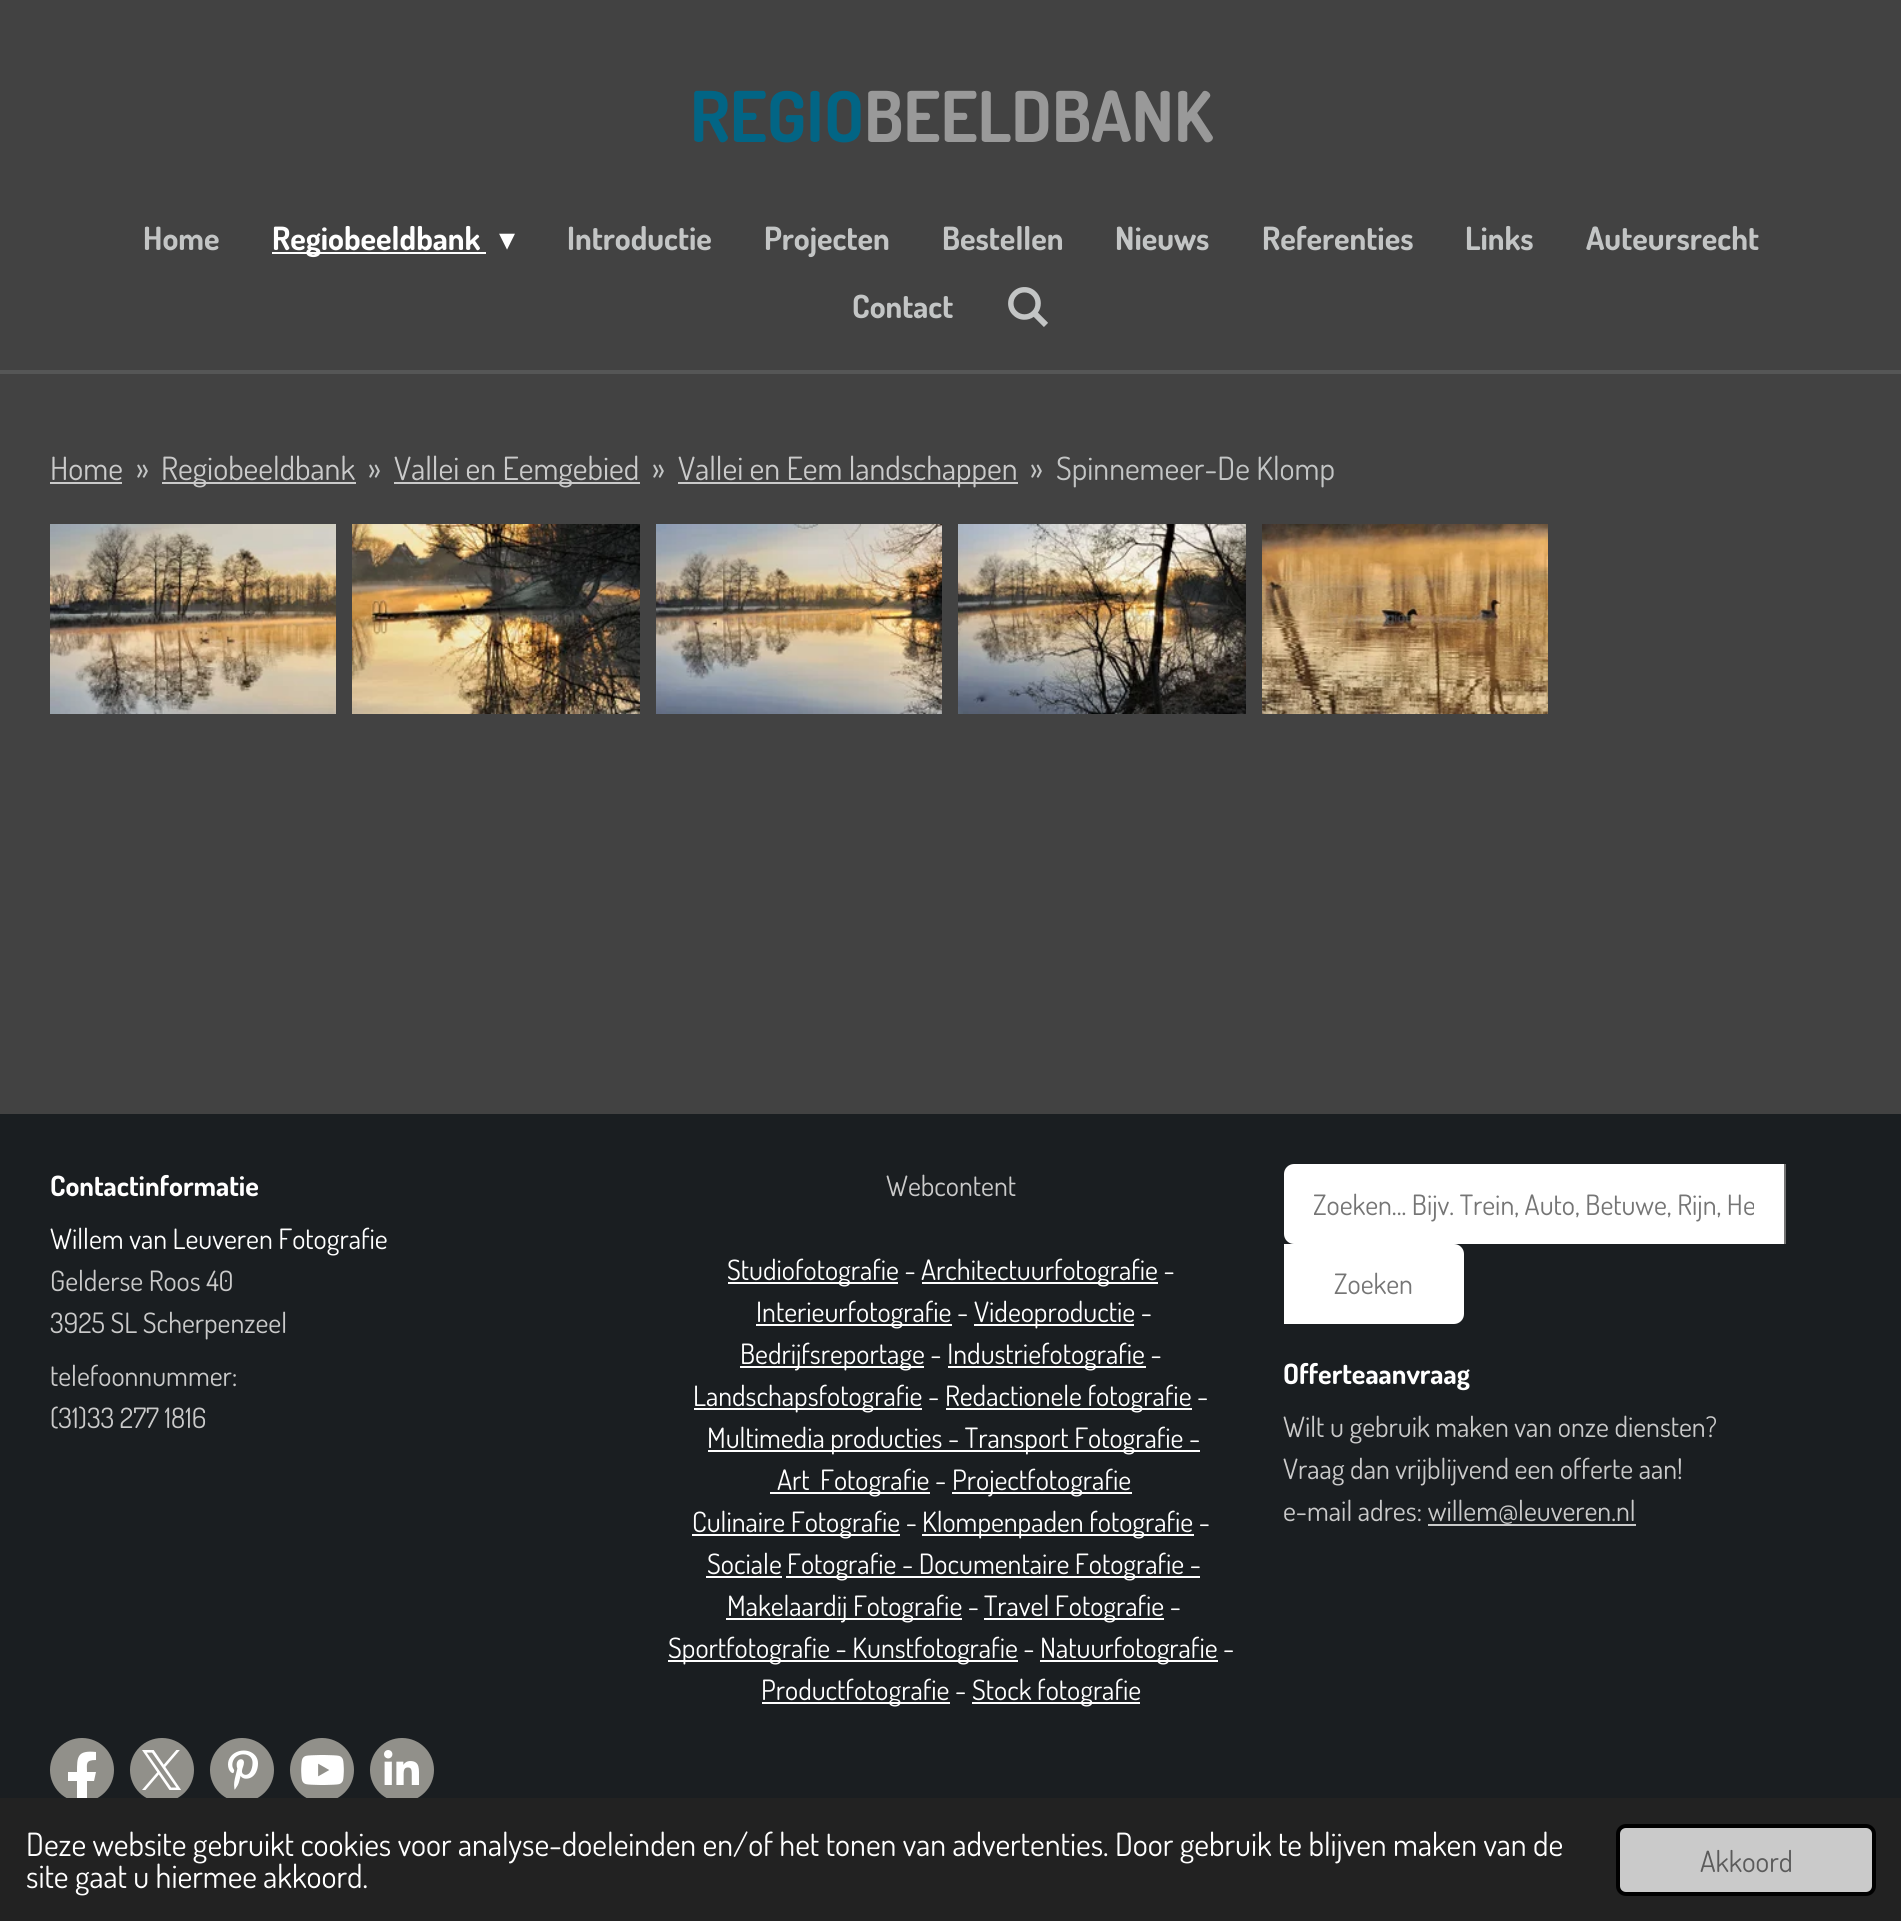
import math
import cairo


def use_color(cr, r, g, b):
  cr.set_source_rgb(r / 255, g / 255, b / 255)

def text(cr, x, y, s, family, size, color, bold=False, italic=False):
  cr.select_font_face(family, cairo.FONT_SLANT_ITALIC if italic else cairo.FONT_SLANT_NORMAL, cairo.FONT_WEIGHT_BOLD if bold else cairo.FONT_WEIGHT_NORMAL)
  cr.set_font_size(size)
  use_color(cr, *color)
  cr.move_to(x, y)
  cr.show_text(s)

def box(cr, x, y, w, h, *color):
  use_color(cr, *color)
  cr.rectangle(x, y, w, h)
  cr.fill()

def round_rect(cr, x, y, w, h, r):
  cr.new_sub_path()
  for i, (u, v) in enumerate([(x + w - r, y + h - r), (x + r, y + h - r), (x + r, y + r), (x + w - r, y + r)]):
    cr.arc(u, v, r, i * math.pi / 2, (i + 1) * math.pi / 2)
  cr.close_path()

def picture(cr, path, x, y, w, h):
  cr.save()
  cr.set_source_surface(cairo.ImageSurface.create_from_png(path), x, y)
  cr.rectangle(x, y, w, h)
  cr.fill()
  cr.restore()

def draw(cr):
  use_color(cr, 66, 66, 66)
  cr.paint()
  box(cr, 272, 252, 214, 2, 255, 255, 255)
  picture(cr, "img_01.png", 1008, 287, 40, 40)
  box(cr, 0, 370, 1901, 4, 85, 86, 86)
  box(cr, 50, 482, 72, 2, 202, 202, 202)
  box(cr, 162, 482, 194, 2, 202, 202, 202)
  box(cr, 394, 482, 246, 2, 202, 202, 202)
  box(cr, 678, 482, 340, 2, 202, 202, 202)
  picture(cr, "img_02.png", 50, 524, 286, 190)
  picture(cr, "img_03.png", 352, 524, 288, 190)
  picture(cr, "img_04.png", 656, 524, 286, 190)
  picture(cr, "img_05.png", 958, 524, 288, 190)
  picture(cr, "img_06.png", 1262, 524, 286, 190)
  box(cr, 0, 1114, 1901, 684, 26, 30, 33)
  box(cr, 728, 1282, 170, 2, 255, 255, 255)
  box(cr, 922, 1282, 236, 2, 255, 255, 255)
  box(cr, 756, 1324, 196, 2, 255, 255, 255)
  box(cr, 974, 1324, 160, 2, 255, 255, 255)
  box(cr, 740, 1366, 184, 2, 255, 255, 255)
  box(cr, 948, 1366, 198, 2, 255, 255, 255)
  box(cr, 694, 1408, 228, 2, 255, 255, 255)
  box(cr, 946, 1408, 246, 2, 255, 255, 255)
  box(cr, 708, 1450, 492, 2, 255, 255, 255)
  box(cr, 770, 1492, 160, 2, 255, 255, 255)
  box(cr, 952, 1492, 180, 2, 255, 255, 255)
  box(cr, 692, 1534, 208, 2, 255, 255, 255)
  box(cr, 922, 1534, 272, 2, 255, 255, 255)
  box(cr, 706, 1576, 76, 2, 255, 255, 255)
  box(cr, 786, 1576, 414, 2, 255, 255, 255)
  box(cr, 726, 1618, 236, 2, 255, 255, 255)
  box(cr, 984, 1618, 180, 2, 255, 255, 255)
  box(cr, 668, 1660, 350, 2, 255, 255, 255)
  box(cr, 1040, 1660, 178, 2, 255, 255, 255)
  box(cr, 762, 1702, 188, 2, 255, 255, 255)
  box(cr, 972, 1702, 168, 2, 255, 255, 255)
  cr.new_path()
  cr.move_to(1294, 1164)
  cr.line_to(1786, 1164)
  cr.line_to(1786, 1244)
  cr.line_to(1294, 1244)
  cr.curve_to(1288.5, 1244, 1284, 1239.5, 1284, 1234)
  cr.line_to(1284, 1174)
  cr.curve_to(1284, 1168.5, 1288.5, 1164, 1294, 1164)
  cr.close_path()
  cr.fill()
  box(cr, 1784, 1164, 2, 80, 115, 115, 115)
  use_color(cr, 255, 255, 255)
  cr.new_path()
  cr.move_to(1284, 1244)
  cr.line_to(1454, 1244)
  cr.curve_to(1459.5, 1244, 1464, 1248.5, 1464, 1254)
  cr.line_to(1464, 1314)
  cr.curve_to(1464, 1319.5, 1459.5, 1324, 1454, 1324)
  cr.line_to(1284, 1324)
  cr.close_path()
  cr.fill()
  box(cr, 1428, 1524, 208, 2, 202, 202, 202)
  use_color(cr, 145, 144, 138)
  cr.arc(82, 1770, 32, 0, 2 * math.pi)
  cr.fill()
  use_color(cr, 255, 255, 255)
  cr.new_path()
  cr.move_to(94, 1781)
  cr.line_to(87, 1781)
  cr.line_to(87, 1802)
  cr.curve_to(84, 1802, 80, 1802, 77, 1802)
  cr.line_to(77, 1781)
  cr.line_to(68, 1781)
  cr.line_to(68, 1772)
  cr.line_to(77, 1772)
  cr.curve_to(77, 1757, 77, 1750, 96, 1752)
  cr.line_to(96, 1760)
  cr.curve_to(85, 1760, 87, 1764, 87, 1772)
  cr.line_to(96, 1772)
  cr.close_path()
  cr.fill()
  use_color(cr, 145, 144, 138)
  cr.arc(162, 1770, 32, 0, 2 * math.pi)
  cr.fill()
  picture(cr, "img_07.png", 142, 1750, 39, 40)
  cr.arc(242, 1770, 32, 0, 2 * math.pi)
  cr.fill()
  picture(cr, "img_08.png", 228, 1750, 30, 40)
  cr.arc(322, 1770, 32, 0, 2 * math.pi)
  cr.fill()
  picture(cr, "img_09.png", 301, 1755, 43, 30)
  cr.arc(402, 1770, 32, 0, 2 * math.pi)
  cr.fill()
  picture(cr, "img_10.png", 384, 1750, 35, 35)
  box(cr, 0, 1798, 1901, 123, 34, 34, 34)
  use_color(cr, 202, 202, 202)
  round_rect(cr, 1618, 1826, 256, 68, 8)
  cr.fill_preserve()
  use_color(cr, 0, 0, 0)
  cr.set_line_width(4)
  cr.stroke()
  text(cr, 690, 142, "REGIO", "Dosis", 70, (2, 101, 133), bold=True)
  text(cr, 864, 142, "BEELDBANK", "Dosis", 70, (153, 153, 153), bold=True)
  text(cr, 143, 250, "Home", "Dosis", 32, (195, 197, 197), bold=True)
  text(cr, 272, 250, "Regiobeeldbank", "Dosis", 32, (255, 255, 255), bold=True)
  text(cr, 499, 250, "▾", "DejaVu Sans", 32, (255, 255, 255))
  text(cr, 567, 250, "Introductie", "Dosis", 32, (195, 197, 197), bold=True)
  text(cr, 764, 250, "Projecten", "Dosis", 32, (195, 197, 197), bold=True)
  text(cr, 942, 250, "Bestellen", "Dosis", 32, (195, 197, 197), bold=True)
  text(cr, 1115, 250, "Nieuws", "Dosis", 32, (195, 197, 197), bold=True)
  text(cr, 1262, 250, "Referenties", "Dosis", 32, (195, 197, 197), bold=True)
  text(cr, 1465, 250, "Links", "Dosis", 32, (195, 197, 197), bold=True)
  text(cr, 1586, 250, "Auteursrecht", "Dosis", 32, (195, 197, 197), bold=True)
  text(cr, 852, 318, "Contact", "Dosis", 32, (195, 197, 197), bold=True)
  text(cr, 50, 480, "Home", "Dosis", 32, (202, 202, 202))
  text(cr, 136, 480, "»", "Dosis", 32, (195, 197, 197))
  text(cr, 161, 480, "Regiobeeldbank", "Dosis", 32, (202, 202, 202))
  text(cr, 368, 480, "»", "Dosis", 32, (195, 197, 197))
  text(cr, 394, 480, "Vallei en Eemgebied", "Dosis", 32, (202, 202, 202))
  text(cr, 652, 480, "»", "Dosis", 32, (195, 197, 197))
  text(cr, 678, 480, "Vallei en Eem landschappen", "Dosis", 32, (202, 202, 202))
  text(cr, 1030, 480, "»", "Dosis", 32, (195, 197, 197))
  text(cr, 1056, 480, "Spinnemeer-De Klomp", "Dosis", 32, (195, 197, 197))
  text(cr, 50, 1196, "Contactinformatie", "Dosis", 28, (255, 255, 255), bold=True)
  text(cr, 50, 1249, "Willem van Leuveren Fotografie", "Dosis", 28, (255, 255, 255))
  text(cr, 50, 1291, "Gelderse Roos 40", "Dosis", 28, (202, 202, 202))
  text(cr, 50, 1333, "3925 SL Scherpenzeel", "Dosis", 28, (202, 202, 202))
  text(cr, 50, 1386, "telefoonnummer:", "Dosis", 28, (202, 202, 202))
  text(cr, 50, 1428, "(31)33 277 1816", "Dosis", 28, (202, 202, 202))
  text(cr, 886, 1196, "Webcontent", "Dosis", 28, (202, 202, 202))
  text(cr, 727, 1280, "Studiofotografie -", "Dosis", 28, (255, 255, 255))
  text(cr, 921, 1280, "Architectuurfotografie -", "Dosis", 28, (255, 255, 255))
  text(cr, 756, 1322, "Interieurfotografie -", "Dosis", 28, (255, 255, 255))
  text(cr, 974, 1322, "Videoproductie -", "Dosis", 28, (255, 255, 255))
  text(cr, 740, 1364, "Bedrijfsreportage - Industrie", "Dosis", 28, (255, 255, 255))
  text(cr, 1041, 1364, "fotografie -", "Dosis", 28, (255, 255, 255))
  text(cr, 693, 1406, "Landschapsfotografie -", "Dosis", 28, (255, 255, 255))
  text(cr, 945, 1406, "Redactionele fotografie -", "Dosis", 28, (255, 255, 255))
  text(cr, 707, 1448, "Multimedia producties - Transport Fotografie -", "Dosis", 28, (255, 255, 255))
  text(cr, 777, 1490, "Art", "Dosis", 28, (255, 255, 255))
  text(cr, 820, 1490, "Fotografie -", "Dosis", 28, (255, 255, 255))
  text(cr, 952, 1490, "Projectfotografie", "Dosis", 28, (255, 255, 255))
  text(cr, 692, 1532, "Culinaire Fotografie -", "Dosis", 28, (255, 255, 255))
  text(cr, 922, 1532, "Klompenpaden fotografie -", "Dosis", 28, (255, 255, 255))
  text(cr, 707, 1574, "Sociale", "Dosis", 28, (255, 255, 255))
  text(cr, 787, 1574, "Fotografie - Documentaire Fotografie -", "Dosis", 28, (255, 255, 255))
  text(cr, 727, 1616, "Makelaardij Fotografie -", "Dosis", 28, (255, 255, 255))
  text(cr, 984, 1616, "Travel Fotografie -", "Dosis", 28, (255, 255, 255))
  text(cr, 668, 1658, "Sportfotografie - Kunstfotografie -", "Dosis", 28, (255, 255, 255))
  text(cr, 1040, 1658, "Natuurfotografie -", "Dosis", 28, (255, 255, 255))
  text(cr, 761, 1700, "Productfotografie -", "Dosis", 28, (255, 255, 255))
  text(cr, 972, 1700, "Stock fotografie", "Dosis", 28, (255, 255, 255))
  cr.save()
  cr.rectangle(1314, 1188, 440, 34)
  cr.clip()
  text(cr, 1313, 1215, "Zoeken... Bijv. Trein, Auto, Betuwe, Rijn, He", "Dosis", 28, (117, 117, 117))
  cr.restore()
  text(cr, 1334, 1294, "Zoeken", "Dosis", 28, (117, 117, 117))
  text(cr, 1283, 1384, "Offerteaanvraag", "Dosis", 28, (255, 255, 255), bold=True)
  text(cr, 1283, 1437, "Wilt u gebruik maken van onze diensten?", "Dosis", 28, (202, 202, 202))
  text(cr, 1283, 1479, "Vraag dan vrijblijvend een offerte aan!", "Dosis", 28, (202, 202, 202))
  text(cr, 1283, 1521, "e-mail adres: willem@leuveren.nl", "Dosis", 28, (202, 202, 202))
  text(cr, 26, 1856, "Deze website gebruikt cookies voor analyse-doeleinden en/of het tonen van advertenties. Door gebruik te blijven maken van de", "Dosis", 32, (255, 255, 255))
  text(cr, 26, 1888, "site gaat u hiermee akkoord.", "Dosis", 32, (255, 255, 255))
  text(cr, 1700, 1872, "Akkoord", "Dosis", 29, (91, 91, 91))


surface = cairo.ImageSurface(cairo.FORMAT_RGB24, 1901, 1921)
cr = cairo.Context(surface)
options = cairo.FontOptions()
options.set_hint_metrics(cairo.HINT_METRICS_OFF)
options.set_hint_style(cairo.HINT_STYLE_NONE)
cr.set_font_options(options)
cr.set_miter_limit(4)
draw(cr)
surface.write_to_png("out.png")
